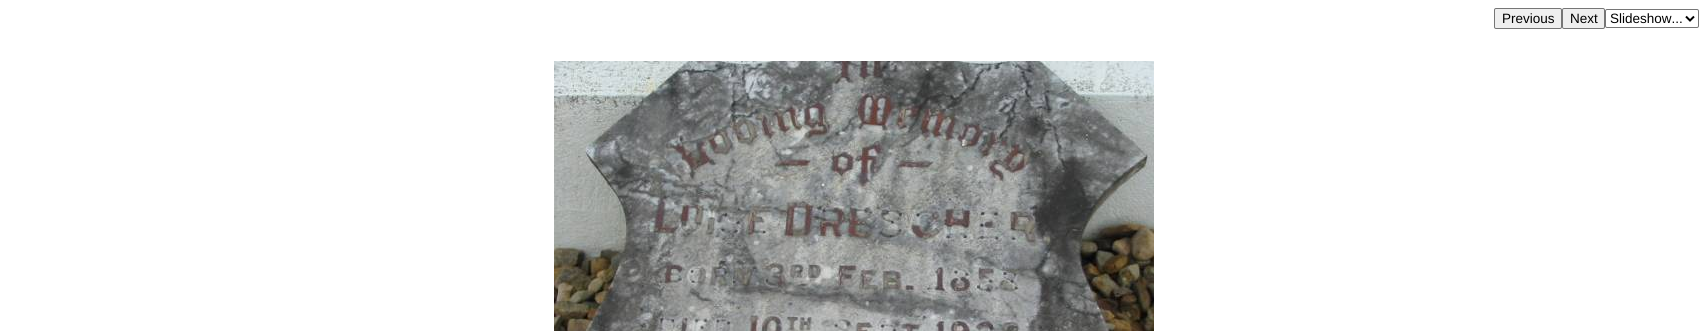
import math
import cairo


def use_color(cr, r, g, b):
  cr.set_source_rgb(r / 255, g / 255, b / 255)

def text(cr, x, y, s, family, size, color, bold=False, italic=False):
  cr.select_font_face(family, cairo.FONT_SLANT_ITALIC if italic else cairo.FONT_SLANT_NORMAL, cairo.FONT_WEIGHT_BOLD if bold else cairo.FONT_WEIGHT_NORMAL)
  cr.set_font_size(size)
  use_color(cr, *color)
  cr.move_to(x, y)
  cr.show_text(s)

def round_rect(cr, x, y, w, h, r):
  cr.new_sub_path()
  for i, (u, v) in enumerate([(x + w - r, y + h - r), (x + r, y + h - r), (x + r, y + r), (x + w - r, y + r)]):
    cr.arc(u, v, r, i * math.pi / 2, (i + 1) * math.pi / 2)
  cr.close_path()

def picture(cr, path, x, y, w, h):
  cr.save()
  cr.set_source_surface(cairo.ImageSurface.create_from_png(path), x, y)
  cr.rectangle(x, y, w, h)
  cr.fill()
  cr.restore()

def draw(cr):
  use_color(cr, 255, 255, 255)
  cr.paint()
  use_color(cr, 239, 239, 239)
  round_rect(cr, 1494.5, 8.5, 67, 20, 1.5)
  cr.fill_preserve()
  use_color(cr, 118, 118, 118)
  cr.set_line_width(1)
  cr.stroke()
  use_color(cr, 239, 239, 239)
  round_rect(cr, 1562.5, 8.5, 42, 20, 1.5)
  cr.fill_preserve()
  use_color(cr, 118, 118, 118)
  cr.stroke()
  round_rect(cr, 1605.5, 9.5, 93, 18, 1.5)
  cr.stroke()
  cr.new_path()
  cr.move_to(1686, 16.5)
  cr.line_to(1690, 20.5)
  cr.line_to(1694, 16.5)
  use_color(cr, 0, 0, 0)
  cr.set_line_width(2)
  cr.stroke()
  picture(cr, "img_01.png", 554, 61, 600, 270)
  text(cr, 1502, 23, "Previous", "Liberation Sans", 13.5, (0, 0, 0))
  text(cr, 1570, 23, "Next", "Liberation Sans", 13.5, (0, 0, 0))
  text(cr, 1610, 23, "Slideshow...", "Liberation Sans", 13.5, (0, 0, 0))


surface = cairo.ImageSurface(cairo.FORMAT_RGB24, 1707, 331)
cr = cairo.Context(surface)
options = cairo.FontOptions()
options.set_hint_metrics(cairo.HINT_METRICS_OFF)
options.set_hint_style(cairo.HINT_STYLE_NONE)
cr.set_font_options(options)
cr.set_miter_limit(4)
draw(cr)
surface.write_to_png("out.png")
